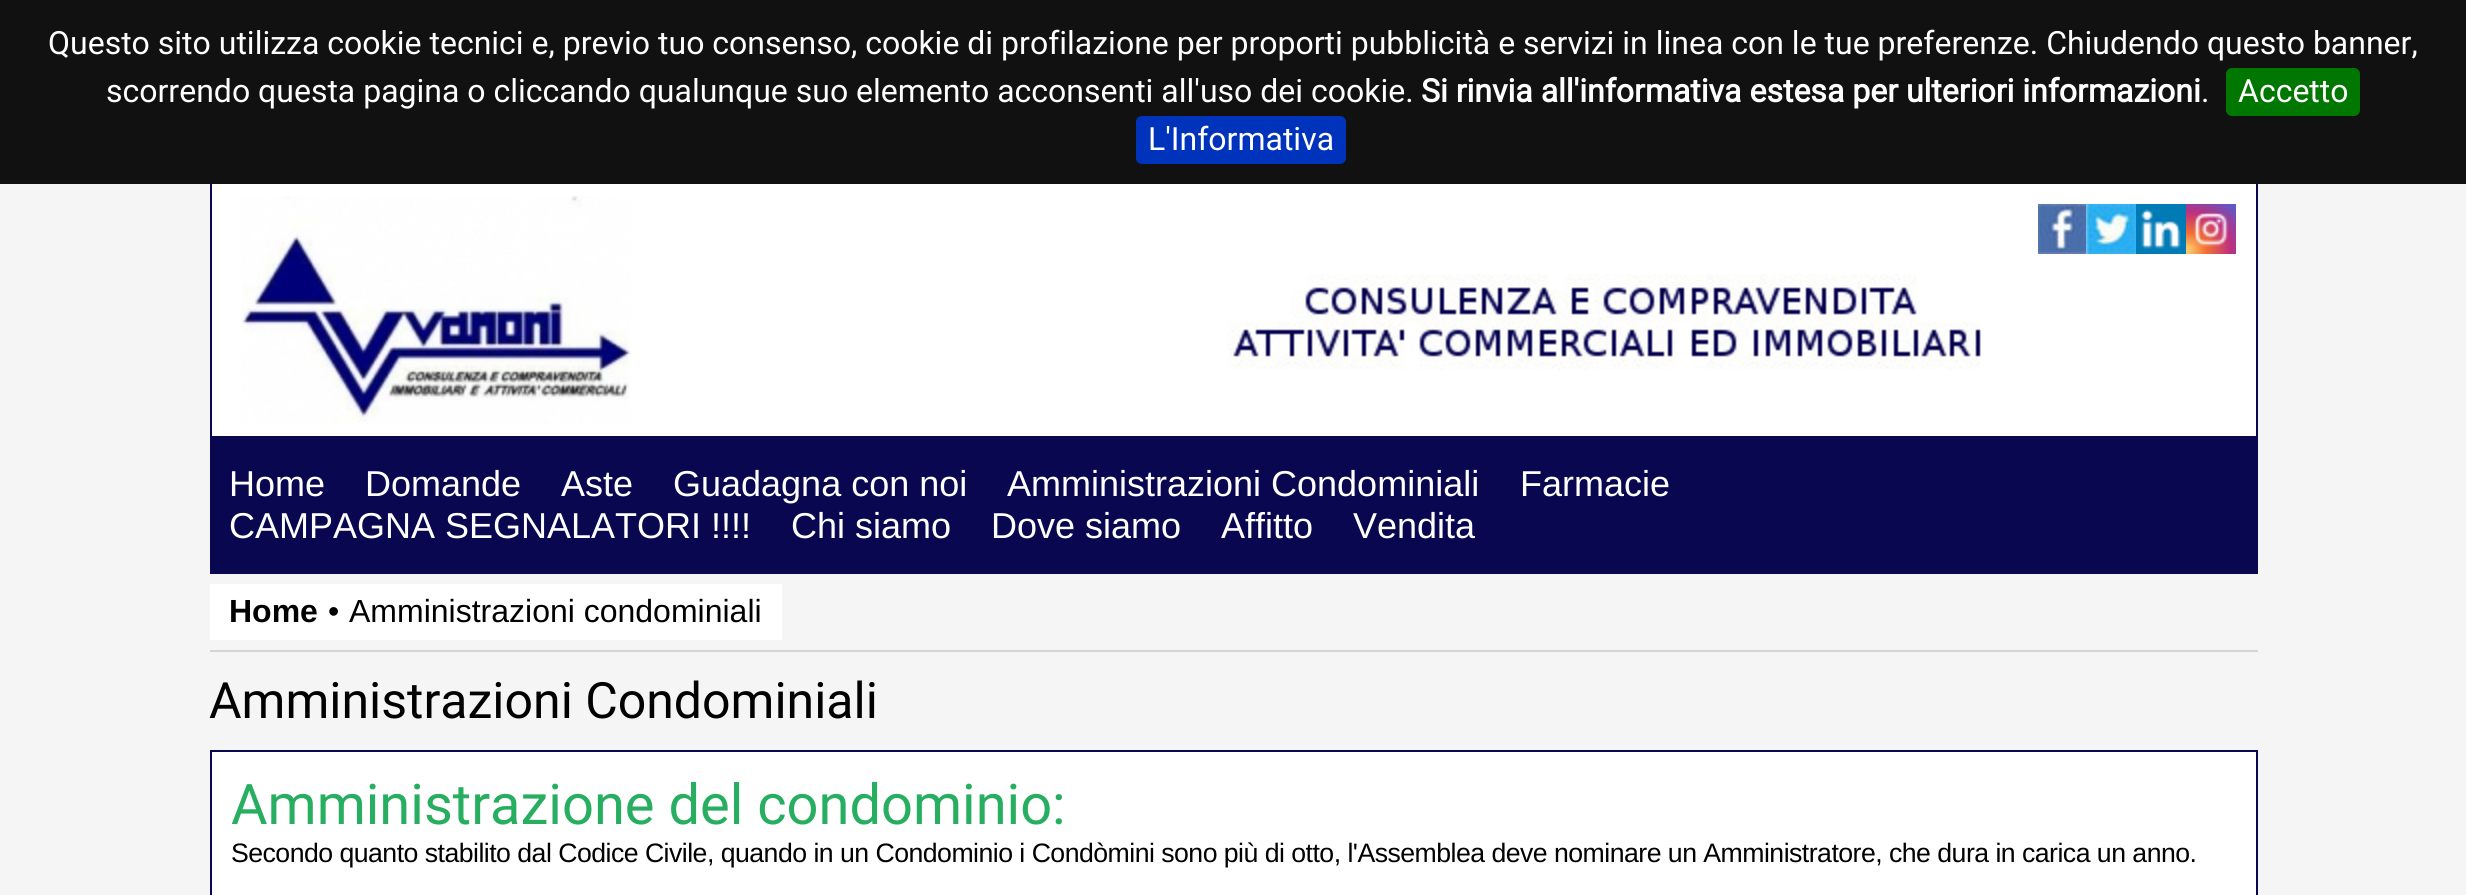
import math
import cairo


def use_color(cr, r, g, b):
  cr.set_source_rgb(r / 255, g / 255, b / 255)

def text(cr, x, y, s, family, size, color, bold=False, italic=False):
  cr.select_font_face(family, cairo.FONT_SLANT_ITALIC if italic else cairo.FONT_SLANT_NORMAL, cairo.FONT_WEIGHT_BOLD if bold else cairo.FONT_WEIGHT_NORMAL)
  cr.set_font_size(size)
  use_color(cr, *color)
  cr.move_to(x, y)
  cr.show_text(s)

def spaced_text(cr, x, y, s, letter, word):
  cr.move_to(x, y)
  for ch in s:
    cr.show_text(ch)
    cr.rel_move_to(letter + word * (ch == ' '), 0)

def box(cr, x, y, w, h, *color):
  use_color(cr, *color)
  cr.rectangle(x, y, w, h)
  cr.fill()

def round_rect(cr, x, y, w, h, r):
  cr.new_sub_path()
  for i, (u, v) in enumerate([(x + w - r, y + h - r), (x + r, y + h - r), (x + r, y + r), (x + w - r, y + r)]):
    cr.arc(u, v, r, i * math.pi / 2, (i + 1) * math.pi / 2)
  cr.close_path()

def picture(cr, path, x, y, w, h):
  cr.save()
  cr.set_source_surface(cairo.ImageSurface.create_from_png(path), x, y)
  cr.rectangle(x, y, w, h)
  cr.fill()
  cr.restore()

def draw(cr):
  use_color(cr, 245, 245, 245)
  cr.paint()
  box(cr, 0, 0, 2466, 184, 17, 17, 17)
  use_color(cr, 0, 119, 0)
  round_rect(cr, 2226, 68, 134, 48, 6)
  cr.fill()
  use_color(cr, 0, 51, 187)
  round_rect(cr, 1136, 116, 210, 48, 6)
  cr.fill()
  box(cr, 212, 184, 2044, 252, 255, 255, 255)
  box(cr, 2256, 184, 2, 254, 9, 7, 80)
  box(cr, 210, 436, 2048, 138, 9, 7, 80)
  box(cr, 210, 184, 2, 254, 9, 7, 80)
  picture(cr, "img_01.png", 241, 196, 390, 228)
  picture(cr, "img_02.png", 2038, 204, 48, 50)
  picture(cr, "img_03.png", 2086, 204, 50, 50)
  picture(cr, "img_04.png", 2136, 204, 50, 50)
  picture(cr, "img_05.png", 2186, 204, 50, 50)
  picture(cr, "img_06.png", 1228, 274, 753, 96)
  box(cr, 210, 650, 2048, 2, 213, 213, 213)
  box(cr, 210, 584, 572, 56, 255, 255, 255)
  cr.rectangle(211, 751, 2046, 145)
  cr.fill_preserve()
  use_color(cr, 9, 7, 80)
  cr.stroke()
  text(cr, 48, 54, "Questo sito utilizza cookie tecnici e, previo tuo consenso, cookie di profilazione per proporti pubblicità e servizi in linea con le tue preferenze. Chiudendo questo banner,", "Roboto", 32, (255, 255, 255))
  text(cr, 106, 102, "scorrendo questa pagina o cliccando qualunque suo elemento acconsenti all'uso dei cookie.", "Roboto", 32, (255, 255, 255))
  text(cr, 1421, 102, "Si rinvia all'informativa estesa per ulteriori informazioni", "Roboto", 32, (255, 255, 255), bold=True)
  text(cr, 2201, 102, ".", "Roboto", 32, (255, 255, 255))
  text(cr, 2238, 102, "Accetto", "Roboto", 32, (255, 255, 255))
  text(cr, 1148, 150, "L'Informativa", "Roboto", 32, (255, 255, 255))
  text(cr, 229, 496, "Home", "Liberation Sans", 36, (255, 255, 255))
  text(cr, 365, 496, "Domande", "Liberation Sans", 36, (255, 255, 255))
  text(cr, 561, 496, "Aste", "Liberation Sans", 36, (255, 255, 255))
  text(cr, 673, 496, "Guadagna con noi", "Liberation Sans", 36, (255, 255, 255))
  text(cr, 1007, 496, "Amministrazioni Condominiali", "Liberation Sans", 36, (255, 255, 255))
  text(cr, 1520, 496, "Farmacie", "Liberation Sans", 36, (255, 255, 255))
  text(cr, 229, 538, "CAMPAGNA SEGNALATORI !!!!", "Liberation Sans", 36, (255, 255, 255))
  text(cr, 791, 538, "Chi siamo", "Liberation Sans", 36, (255, 255, 255))
  text(cr, 991, 538, "Dove siamo", "Liberation Sans", 36, (255, 255, 255))
  text(cr, 1221, 538, "Affitto", "Liberation Sans", 36, (255, 255, 255))
  text(cr, 1353, 538, "Vendita", "Liberation Sans", 36, (255, 255, 255))
  text(cr, 229, 622, "Home", "Liberation Sans", 32, (0, 0, 0), bold=True)
  text(cr, 328, 622, "•", "Liberation Sans", 32, (0, 0, 0))
  text(cr, 349, 622, "Amministrazioni condominiali", "Liberation Sans", 32, (0, 0, 0))
  text(cr, 209, 718, "Amministrazioni Condominiali", "Roboto", 50, (0, 0, 0))
  text(cr, 231, 824, "Amministrazione del condominio:", "Roboto", 56, (39, 174, 96))
  cr.select_font_face("Liberation Sans")
  cr.set_font_size(26.65)
  use_color(cr, 0, 0, 0)
  spaced_text(cr, 231, 862, "Secondo quanto stabilito dal Codice Civile, quando in un Condominio i Condòmini sono più di otto, l'Assemblea deve nominare un Amministratore, che dura in carica un anno.", -0.52, 0)


surface = cairo.ImageSurface(cairo.FORMAT_RGB24, 2466, 895)
cr = cairo.Context(surface)
options = cairo.FontOptions()
options.set_hint_metrics(cairo.HINT_METRICS_OFF)
options.set_hint_style(cairo.HINT_STYLE_NONE)
cr.set_font_options(options)
cr.set_miter_limit(4)
draw(cr)
surface.write_to_png("out.png")
